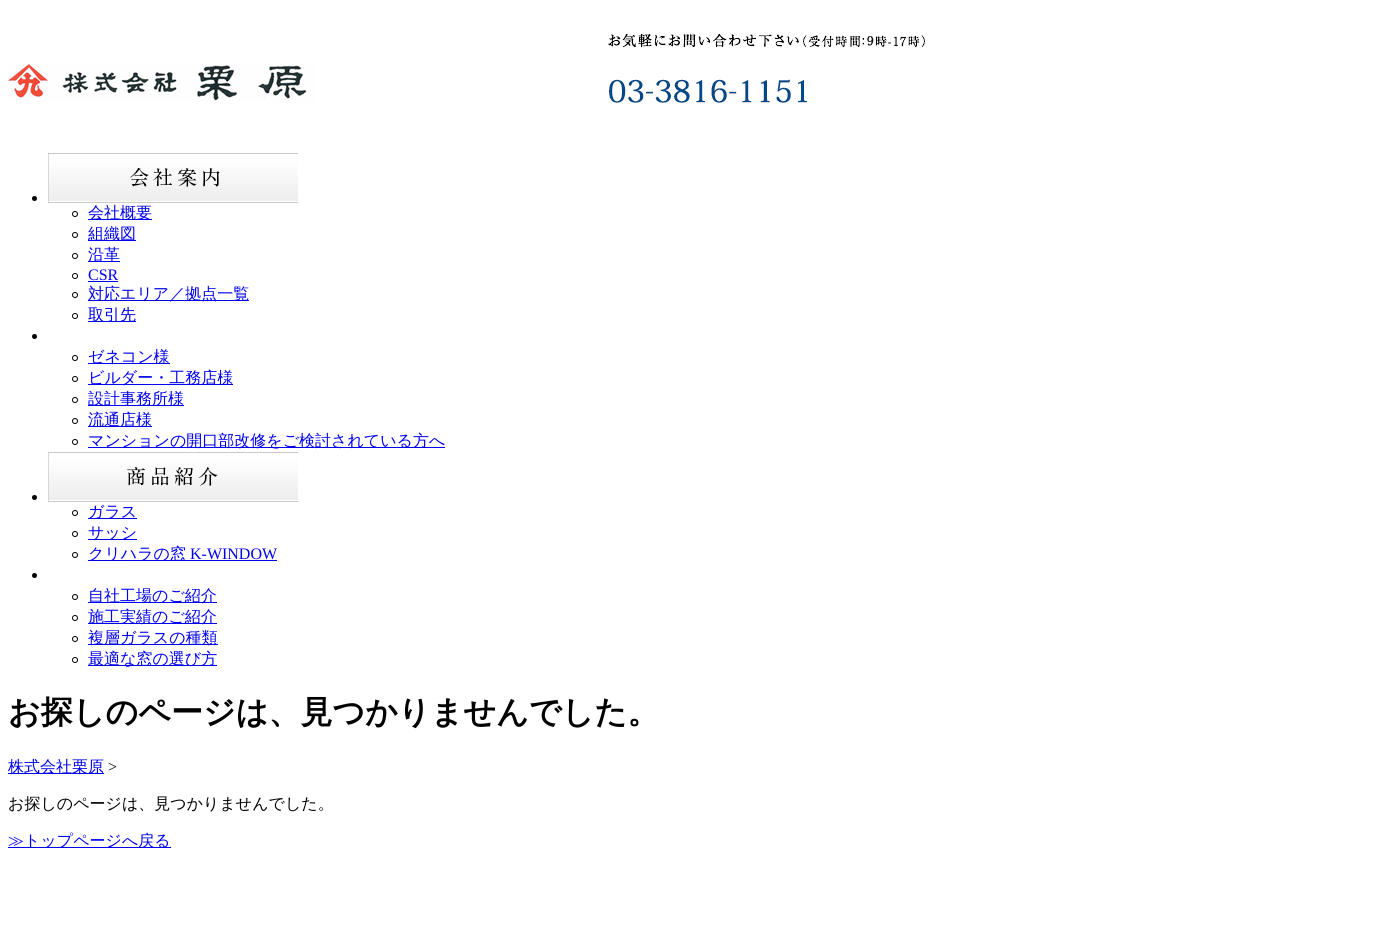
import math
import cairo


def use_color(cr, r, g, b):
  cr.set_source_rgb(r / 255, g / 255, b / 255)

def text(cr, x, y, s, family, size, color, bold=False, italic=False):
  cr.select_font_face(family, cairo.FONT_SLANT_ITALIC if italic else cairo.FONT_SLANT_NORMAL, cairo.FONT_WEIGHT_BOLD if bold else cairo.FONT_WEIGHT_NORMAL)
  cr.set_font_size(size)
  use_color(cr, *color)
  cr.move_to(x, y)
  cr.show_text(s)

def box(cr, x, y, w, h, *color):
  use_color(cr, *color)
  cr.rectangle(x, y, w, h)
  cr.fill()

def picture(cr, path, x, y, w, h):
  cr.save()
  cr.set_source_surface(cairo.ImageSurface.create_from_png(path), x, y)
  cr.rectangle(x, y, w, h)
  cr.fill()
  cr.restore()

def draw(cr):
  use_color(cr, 255, 255, 255)
  cr.paint()
  picture(cr, "img_01.png", 608, 33, 317, 14)
  picture(cr, "img_02.png", 8, 63, 299, 38)
  picture(cr, "img_03.png", 308, 63, 499, 40)
  use_color(cr, 0, 0, 0)
  cr.arc(34.5, 198.5, 2.5, 0, 2 * math.pi)
  cr.fill()
  picture(cr, "img_04.png", 48, 153, 250, 50)
  cr.arc(75, 214, 2.5, 0, 2 * math.pi)
  cr.set_line_width(1)
  cr.stroke()
  box(cr, 88, 219, 64, 1, 0, 0, 238)
  cr.arc(75, 235, 2.5, 0, 2 * math.pi)
  use_color(cr, 0, 0, 0)
  cr.stroke()
  box(cr, 88, 240, 48, 1, 0, 0, 238)
  cr.arc(75, 256, 2.5, 0, 2 * math.pi)
  use_color(cr, 0, 0, 0)
  cr.stroke()
  box(cr, 88, 261, 32, 1, 0, 0, 238)
  cr.arc(75, 276, 2.5, 0, 2 * math.pi)
  use_color(cr, 0, 0, 0)
  cr.stroke()
  box(cr, 88, 281, 30, 1, 0, 0, 238)
  cr.arc(75, 295, 2.5, 0, 2 * math.pi)
  use_color(cr, 0, 0, 0)
  cr.stroke()
  box(cr, 88, 300, 161, 1, 0, 0, 238)
  cr.arc(75, 316, 2.5, 0, 2 * math.pi)
  use_color(cr, 0, 0, 0)
  cr.stroke()
  box(cr, 88, 321, 48, 1, 0, 0, 238)
  use_color(cr, 0, 0, 0)
  cr.arc(34.5, 336.5, 2.5, 0, 2 * math.pi)
  cr.fill()
  cr.arc(75, 358, 2.5, 0, 2 * math.pi)
  cr.stroke()
  box(cr, 88, 363, 82, 1, 0, 0, 238)
  cr.arc(75, 379, 2.5, 0, 2 * math.pi)
  use_color(cr, 0, 0, 0)
  cr.stroke()
  box(cr, 88, 384, 145, 1, 0, 0, 238)
  cr.arc(75, 400, 2.5, 0, 2 * math.pi)
  use_color(cr, 0, 0, 0)
  cr.stroke()
  box(cr, 88, 405, 96, 1, 0, 0, 238)
  cr.arc(75, 421, 2.5, 0, 2 * math.pi)
  use_color(cr, 0, 0, 0)
  cr.stroke()
  box(cr, 88, 426, 64, 1, 0, 0, 238)
  cr.arc(75, 442, 2.5, 0, 2 * math.pi)
  use_color(cr, 0, 0, 0)
  cr.stroke()
  box(cr, 88, 447, 357, 1, 0, 0, 238)
  use_color(cr, 0, 0, 0)
  cr.arc(34.5, 497.5, 2.5, 0, 2 * math.pi)
  cr.fill()
  picture(cr, "img_05.png", 48, 452, 250, 50)
  cr.arc(75, 513, 2.5, 0, 2 * math.pi)
  cr.stroke()
  box(cr, 88, 518, 49, 1, 0, 0, 238)
  cr.arc(75, 534, 2.5, 0, 2 * math.pi)
  use_color(cr, 0, 0, 0)
  cr.stroke()
  box(cr, 88, 539, 49, 1, 0, 0, 238)
  cr.arc(75, 555, 2.5, 0, 2 * math.pi)
  use_color(cr, 0, 0, 0)
  cr.stroke()
  box(cr, 88, 560, 189, 1, 0, 0, 238)
  use_color(cr, 0, 0, 0)
  cr.arc(34.5, 575.5, 2.5, 0, 2 * math.pi)
  cr.fill()
  cr.arc(75, 597, 2.5, 0, 2 * math.pi)
  cr.stroke()
  box(cr, 88, 602, 129, 1, 0, 0, 238)
  cr.arc(75, 618, 2.5, 0, 2 * math.pi)
  use_color(cr, 0, 0, 0)
  cr.stroke()
  box(cr, 88, 623, 129, 1, 0, 0, 238)
  cr.arc(75, 639, 2.5, 0, 2 * math.pi)
  use_color(cr, 0, 0, 0)
  cr.stroke()
  box(cr, 88, 644, 130, 1, 0, 0, 238)
  cr.arc(75, 660, 2.5, 0, 2 * math.pi)
  use_color(cr, 0, 0, 0)
  cr.stroke()
  box(cr, 88, 665, 129, 1, 0, 0, 238)
  box(cr, 8, 773, 96, 1, 0, 0, 238)
  box(cr, 8, 847, 163, 1, 0, 0, 238)
  text(cr, 88, 218, "会社概要", "WenQuanYi Zen Hei Medium", 16, (0, 0, 238))
  text(cr, 88, 239, "組織図", "WenQuanYi Zen Hei Medium", 16, (0, 0, 238))
  text(cr, 88, 260, "沿革", "WenQuanYi Zen Hei Medium", 16, (0, 0, 238))
  text(cr, 88, 280, "CSR", "Liberation Serif", 16, (0, 0, 238))
  text(cr, 88, 299, "対応エリア／拠点一覧", "WenQuanYi Zen Hei Medium", 16, (0, 0, 238))
  text(cr, 88, 320, "取引先", "WenQuanYi Zen Hei Medium", 16, (0, 0, 238))
  text(cr, 88, 362, "ゼネコン様", "WenQuanYi Zen Hei Medium", 16, (0, 0, 238))
  text(cr, 88, 383, "ビルダー・工務店様", "WenQuanYi Zen Hei Medium", 16, (0, 0, 238))
  text(cr, 88, 404, "設計事務所様", "WenQuanYi Zen Hei Medium", 16, (0, 0, 238))
  text(cr, 88, 425, "流通店様", "WenQuanYi Zen Hei Medium", 16, (0, 0, 238))
  text(cr, 88, 446, "マンションの開口部改修をご検討されている方へ", "WenQuanYi Zen Hei Medium", 16, (0, 0, 238))
  text(cr, 88, 517, "ガラス", "WenQuanYi Zen Hei Medium", 16, (0, 0, 238))
  text(cr, 88, 538, "サッシ", "WenQuanYi Zen Hei Medium", 16, (0, 0, 238))
  text(cr, 88, 559, "クリハラの窓", "WenQuanYi Zen Hei Medium", 16, (0, 0, 238))
  text(cr, 190, 559, "K-WINDOW", "Liberation Serif", 16, (0, 0, 238))
  text(cr, 88, 601, "自社工場のご紹介", "WenQuanYi Zen Hei Medium", 16, (0, 0, 238))
  text(cr, 88, 622, "施工実績のご紹介", "WenQuanYi Zen Hei Medium", 16, (0, 0, 238))
  text(cr, 88, 643, "複層ガラスの種類", "WenQuanYi Zen Hei Medium", 16, (0, 0, 238))
  text(cr, 88, 664, "最適な窓の選び方", "WenQuanYi Zen Hei Medium", 16, (0, 0, 238))
  text(cr, 8, 723, "お探しのページは、見つかりませんでした。", "WenQuanYi Zen Hei", 32, (0, 0, 0), bold=True)
  text(cr, 8, 772, "株式会社栗原", "WenQuanYi Zen Hei Medium", 16, (0, 0, 238))
  text(cr, 108, 772, ">", "Liberation Serif", 16, (0, 0, 0))
  text(cr, 8, 809, "お探しのページは、見つかりませんでした。", "WenQuanYi Zen Hei Medium", 16, (0, 0, 0))
  text(cr, 8, 846, "≫トップページへ戻る", "WenQuanYi Zen Hei Medium", 16, (0, 0, 238))


surface = cairo.ImageSurface(cairo.FORMAT_RGB24, 1395, 929)
cr = cairo.Context(surface)
options = cairo.FontOptions()
options.set_hint_metrics(cairo.HINT_METRICS_OFF)
options.set_hint_style(cairo.HINT_STYLE_NONE)
cr.set_font_options(options)
cr.set_miter_limit(4)
draw(cr)
surface.write_to_png("out.png")
